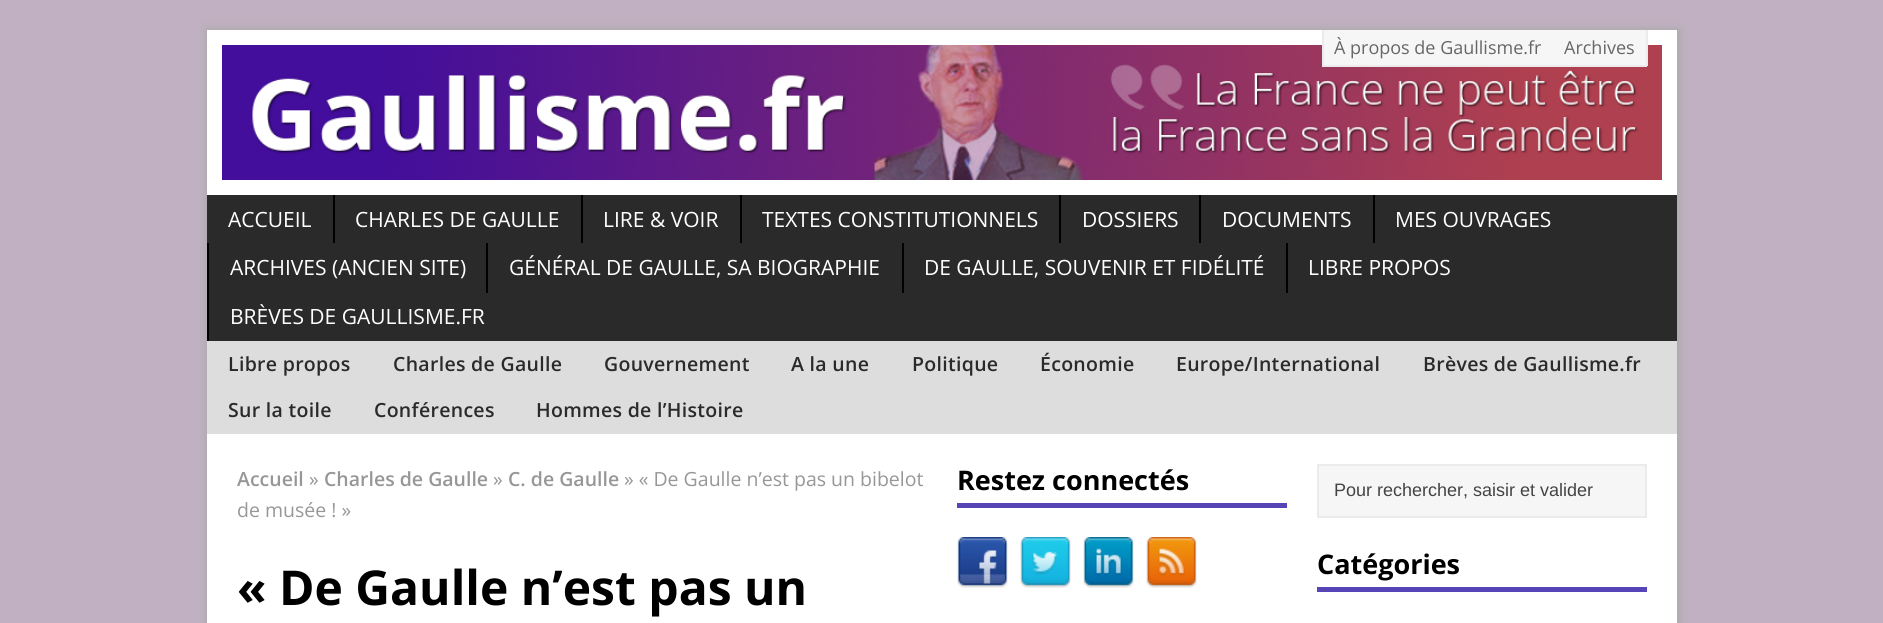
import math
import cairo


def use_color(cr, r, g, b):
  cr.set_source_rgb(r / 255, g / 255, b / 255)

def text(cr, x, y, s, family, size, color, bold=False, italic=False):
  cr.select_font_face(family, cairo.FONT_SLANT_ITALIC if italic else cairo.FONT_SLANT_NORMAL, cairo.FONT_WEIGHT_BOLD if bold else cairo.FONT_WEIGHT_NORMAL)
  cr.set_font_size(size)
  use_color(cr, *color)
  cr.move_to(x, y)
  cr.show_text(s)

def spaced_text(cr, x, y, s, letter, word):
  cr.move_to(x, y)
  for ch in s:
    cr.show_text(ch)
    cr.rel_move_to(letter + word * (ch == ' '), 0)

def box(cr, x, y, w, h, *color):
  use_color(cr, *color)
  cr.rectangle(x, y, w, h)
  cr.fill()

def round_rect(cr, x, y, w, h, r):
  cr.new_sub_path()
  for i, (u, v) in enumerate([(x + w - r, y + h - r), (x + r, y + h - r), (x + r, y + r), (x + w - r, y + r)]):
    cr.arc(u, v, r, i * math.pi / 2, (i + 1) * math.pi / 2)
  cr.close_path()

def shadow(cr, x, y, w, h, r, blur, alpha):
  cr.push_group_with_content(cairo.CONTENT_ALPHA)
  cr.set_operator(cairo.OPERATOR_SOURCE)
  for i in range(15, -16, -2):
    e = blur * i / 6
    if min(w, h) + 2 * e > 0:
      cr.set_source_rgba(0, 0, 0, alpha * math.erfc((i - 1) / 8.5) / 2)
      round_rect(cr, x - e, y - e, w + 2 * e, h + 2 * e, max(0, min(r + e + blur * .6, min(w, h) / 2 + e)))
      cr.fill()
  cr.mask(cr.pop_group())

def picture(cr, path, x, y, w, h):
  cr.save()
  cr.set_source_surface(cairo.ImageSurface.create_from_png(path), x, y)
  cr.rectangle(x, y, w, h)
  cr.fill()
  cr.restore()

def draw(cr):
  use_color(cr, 192, 176, 193)
  cr.paint()
  use_color(cr, 168, 168, 168)
  shadow(cr, 206, 29, 1473, 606, 0, 4, 1)
  box(cr, 207, 30, 1470, 165, 255, 255, 255)
  picture(cr, "img_01.png", 222, 45, 1440, 135)
  box(cr, 1324, 30, 322, 35, 246, 246, 246)
  box(cr, 1646, 30, 2, 36, 235, 235, 235)
  box(cr, 1322, 65, 325, 2, 235, 235, 235)
  box(cr, 1322, 30, 2, 36, 235, 235, 235)
  box(cr, 207, 195, 1470, 146, 42, 42, 42)
  box(cr, 333, 195, 2, 48, 0, 0, 0)
  box(cr, 581, 195, 2, 48, 0, 0, 0)
  box(cr, 740, 195, 2, 48, 0, 0, 0)
  box(cr, 1059, 195, 2, 48, 0, 0, 0)
  box(cr, 1199, 195, 2, 48, 0, 0, 0)
  box(cr, 1373, 195, 2, 48, 0, 0, 0)
  box(cr, 207, 243, 2, 98, 0, 0, 0)
  box(cr, 486, 243, 2, 50, 0, 0, 0)
  box(cr, 902, 243, 2, 50, 0, 0, 0)
  box(cr, 1286, 243, 2, 50, 0, 0, 0)
  box(cr, 207, 341, 1470, 93, 221, 221, 221)
  box(cr, 207, 434, 1470, 189, 255, 255, 255)
  box(cr, 957, 503, 330, 5, 86, 69, 183)
  picture(cr, "img_02.png", 957, 537, 51, 51)
  picture(cr, "img_03.png", 1020, 537, 51, 51)
  picture(cr, "img_04.png", 1083, 537, 51, 51)
  picture(cr, "img_05.png", 1146, 537, 51, 51)
  use_color(cr, 246, 246, 246)
  cr.rectangle(1318, 465, 328, 52)
  cr.fill_preserve()
  use_color(cr, 235, 235, 235)
  cr.stroke()
  box(cr, 1317, 587, 330, 5, 86, 69, 183)
  text(cr, 1334, 54, "À propos de Gaullisme.fr", "Open Sans", 18, (102, 102, 102))
  text(cr, 1564, 54, "Archives", "Open Sans", 18, (102, 102, 102))
  text(cr, 228, 227, "ACCUEIL", "Open Sans", 21, (255, 255, 255))
  text(cr, 355, 227, "CHARLES DE GAULLE", "Open Sans", 21, (255, 255, 255))
  text(cr, 603, 227, "LIRE & VOIR", "Open Sans", 21, (255, 255, 255))
  text(cr, 762, 227, "TEXTES CONSTITUTIONNELS", "Open Sans", 21, (255, 255, 255))
  text(cr, 1082, 227, "DOSSIERS", "Open Sans", 21, (255, 255, 255))
  text(cr, 1222, 227, "DOCUMENTS", "Open Sans", 21, (255, 255, 255))
  text(cr, 1395, 227, "MES OUVRAGES", "Open Sans", 21, (255, 255, 255))
  text(cr, 230, 275, "ARCHIVES (ANCIEN SITE)", "Open Sans", 21, (255, 255, 255))
  text(cr, 509, 275, "GÉNÉRAL DE GAULLE, SA BIOGRAPHIE", "Open Sans", 21, (255, 255, 255))
  text(cr, 924, 275, "DE GAULLE, SOUVENIR ET FIDÉLITÉ", "Open Sans", 21, (255, 255, 255))
  text(cr, 1308, 275, "LIBRE PROPOS", "Open Sans", 21, (255, 255, 255))
  text(cr, 230, 324, "BRÈVES DE GAULLISME.FR", "Open Sans", 21, (255, 255, 255))
  cr.select_font_face("Open Sans SemiBold")
  cr.set_font_size(19.5)
  use_color(cr, 42, 42, 42)
  spaced_text(cr, 228, 371, "Libre propos", 0.3, 0)
  spaced_text(cr, 393, 371, "Charles de Gaulle", 0.3, 0)
  spaced_text(cr, 604, 371, "Gouvernement", 0.3, 0)
  spaced_text(cr, 791, 371, "A la une", 0.3, 0)
  spaced_text(cr, 912, 371, "Politique", 0.3, 0)
  spaced_text(cr, 1040, 371, "Économie", 0.3, 0)
  spaced_text(cr, 1176, 371, "Europe/International", 0.3, 0)
  spaced_text(cr, 1423, 371, "Brèves de Gaullisme.fr", 0.3, 0)
  spaced_text(cr, 228, 417, "Sur la toile", 0.3, 0)
  spaced_text(cr, 374, 417, "Conférences", 0.3, 0)
  spaced_text(cr, 536, 417, "Hommes de l’Histoire", 0.3, 0)
  text(cr, 237, 486, "Accueil", "Open Sans SemiBold", 19.5, (151, 151, 151))
  text(cr, 309, 486, "»", "Open Sans", 19.5, (151, 151, 151))
  text(cr, 324, 486, "Charles de Gaulle", "Open Sans SemiBold", 19.5, (151, 151, 151))
  text(cr, 493, 486, "»", "Open Sans", 19.5, (151, 151, 151))
  text(cr, 508, 486, "C. de Gaulle", "Open Sans SemiBold", 19.5, (151, 151, 151))
  text(cr, 624, 486, "» « De Gaulle n’est pas un bibelot", "Open Sans", 19.5, (151, 151, 151))
  text(cr, 237, 517, "de musée ! »", "Open Sans", 19.5, (151, 151, 151))
  text(cr, 237, 605, "« De Gaulle n’est pas un", "Open Sans", 48, (0, 0, 0), bold=True)
  text(cr, 957, 490, "Restez connectés", "Open Sans", 27, (0, 0, 0), bold=True)
  text(cr, 1334, 496, "Pour rechercher, saisir et valider", "Liberation Sans", 18, (68, 68, 68))
  text(cr, 1317, 574, "Catégories", "Open Sans", 27, (0, 0, 0), bold=True)


surface = cairo.ImageSurface(cairo.FORMAT_RGB24, 1883, 623)
cr = cairo.Context(surface)
options = cairo.FontOptions()
options.set_hint_metrics(cairo.HINT_METRICS_OFF)
options.set_hint_style(cairo.HINT_STYLE_NONE)
cr.set_font_options(options)
cr.set_miter_limit(4)
draw(cr)
surface.write_to_png("out.png")
